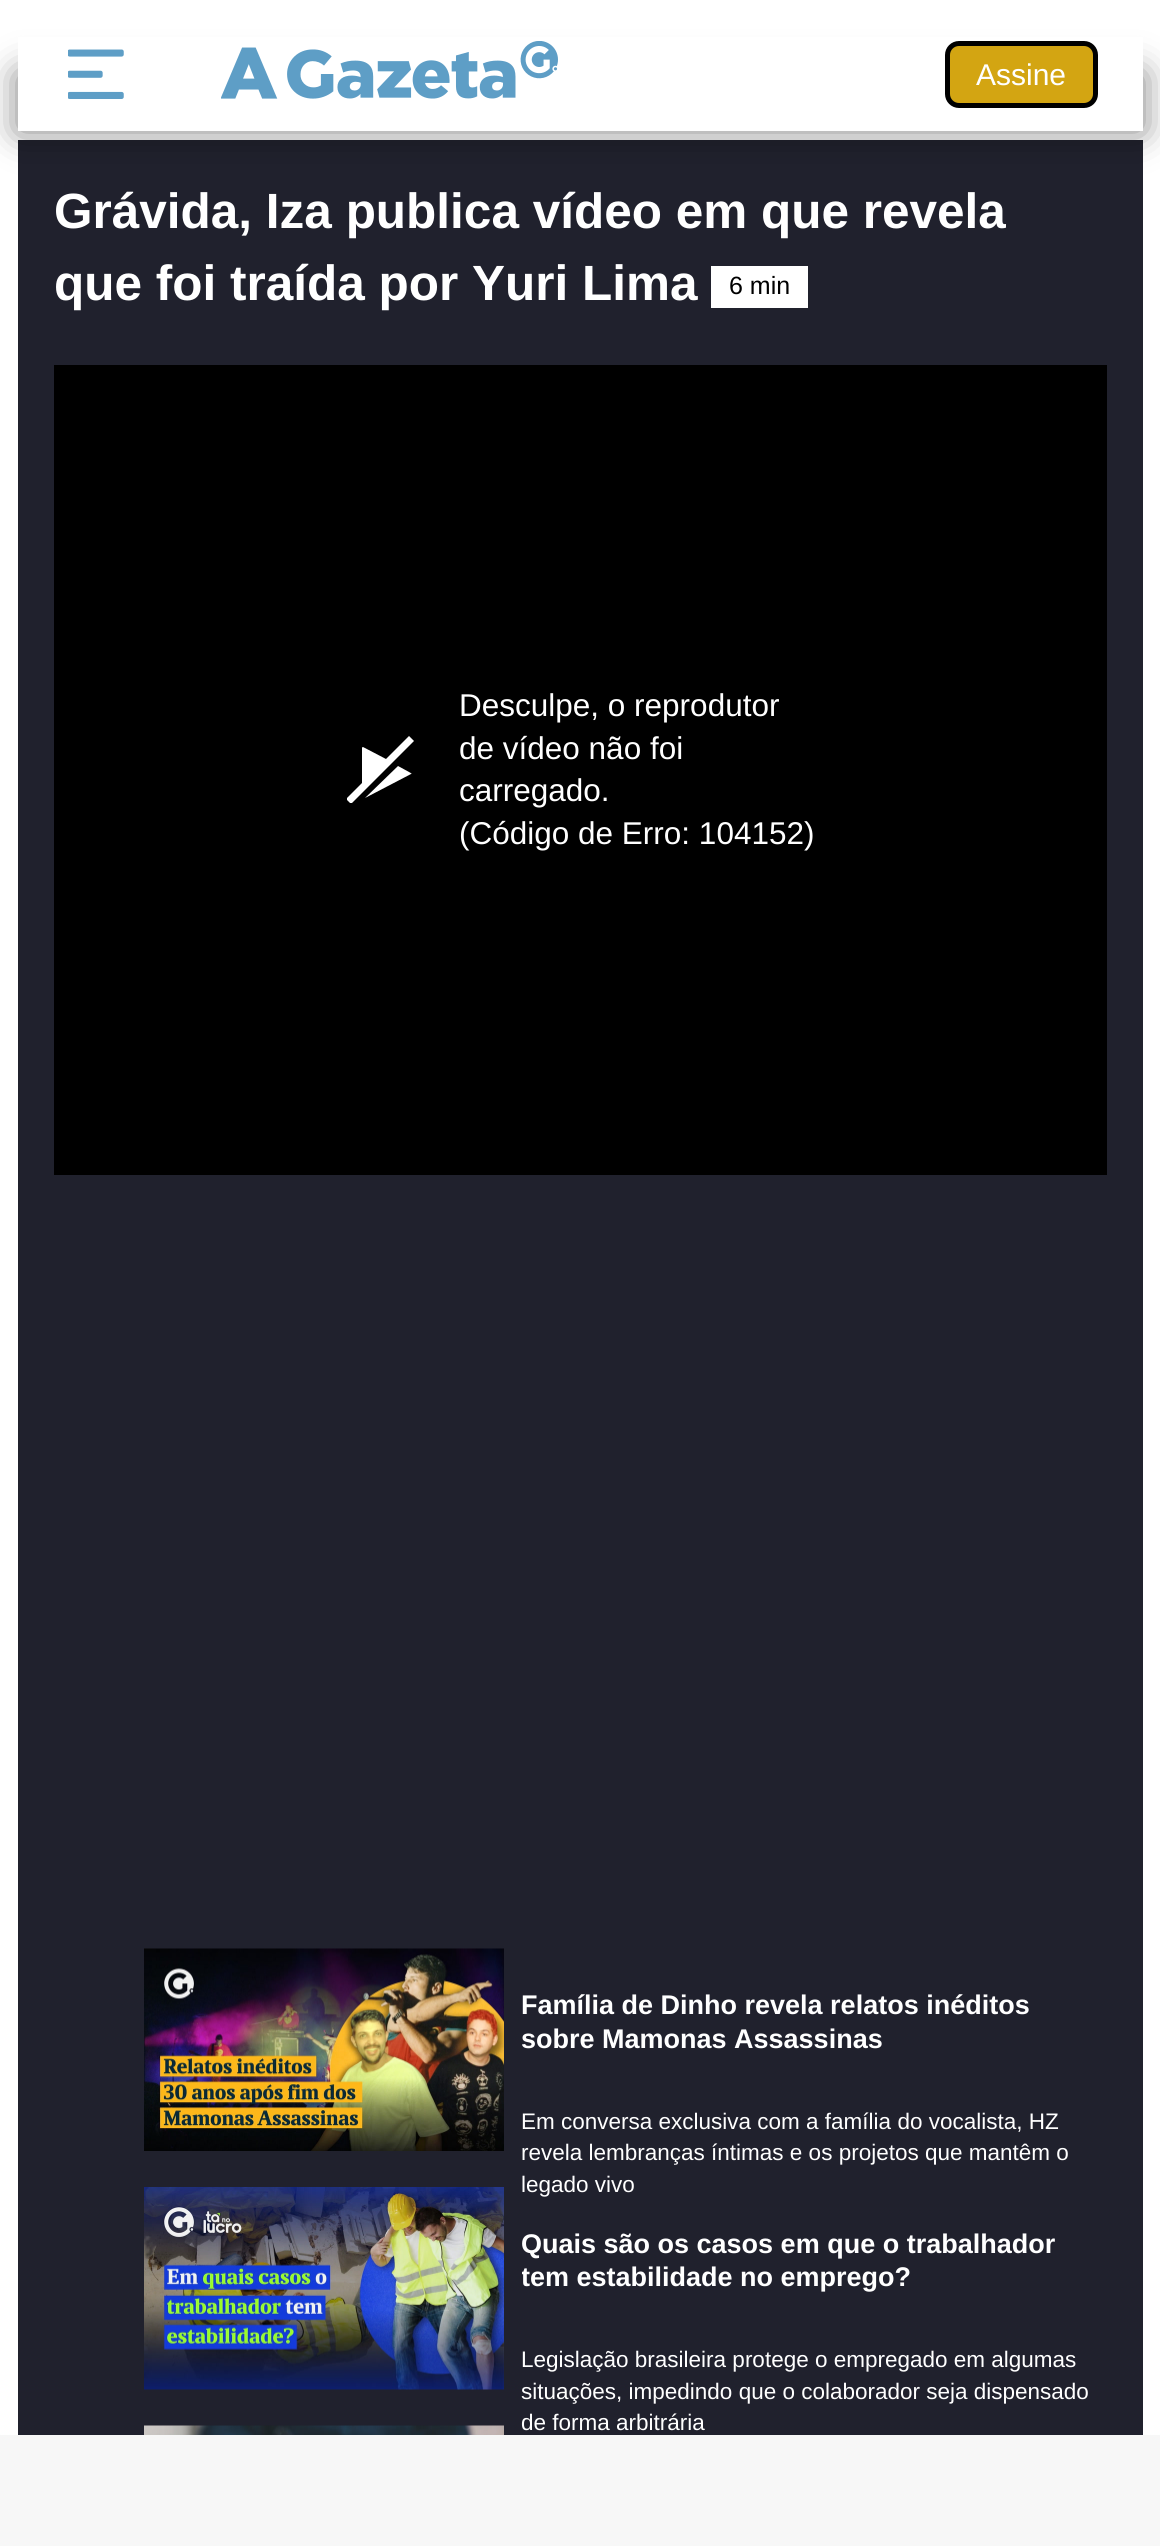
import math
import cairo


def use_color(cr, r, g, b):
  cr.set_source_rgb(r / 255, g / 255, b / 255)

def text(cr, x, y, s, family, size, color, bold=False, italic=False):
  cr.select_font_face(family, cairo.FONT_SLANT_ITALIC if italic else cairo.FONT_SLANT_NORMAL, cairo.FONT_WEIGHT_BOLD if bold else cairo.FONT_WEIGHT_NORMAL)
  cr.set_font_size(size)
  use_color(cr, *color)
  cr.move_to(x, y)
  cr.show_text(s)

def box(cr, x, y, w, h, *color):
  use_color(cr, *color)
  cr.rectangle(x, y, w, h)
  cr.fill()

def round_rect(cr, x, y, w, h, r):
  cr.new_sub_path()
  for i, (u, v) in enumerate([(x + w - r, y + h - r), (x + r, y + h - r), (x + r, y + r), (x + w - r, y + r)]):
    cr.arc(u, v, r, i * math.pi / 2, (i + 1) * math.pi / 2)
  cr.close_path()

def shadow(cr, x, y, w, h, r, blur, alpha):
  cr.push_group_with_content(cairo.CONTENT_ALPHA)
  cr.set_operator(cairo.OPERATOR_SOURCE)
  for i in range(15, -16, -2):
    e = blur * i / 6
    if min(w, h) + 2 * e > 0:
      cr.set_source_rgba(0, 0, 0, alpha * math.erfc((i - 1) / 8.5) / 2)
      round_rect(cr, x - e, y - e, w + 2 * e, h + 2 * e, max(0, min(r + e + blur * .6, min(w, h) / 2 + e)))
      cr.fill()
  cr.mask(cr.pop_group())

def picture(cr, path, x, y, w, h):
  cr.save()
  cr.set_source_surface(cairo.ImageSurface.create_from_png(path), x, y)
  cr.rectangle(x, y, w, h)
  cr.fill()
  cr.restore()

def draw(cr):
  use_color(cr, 255, 255, 255)
  cr.paint()
  box(cr, 18, 140, 1125, 2295, 32, 33, 45)
  use_color(cr, 0, 0, 0)
  shadow(cr, 18, 74, 1125, 57, 0, 18, 0.5)
  box(cr, 18, 37, 1125, 94, 255, 255, 255)
  picture(cr, "img_01.png", 68, 49, 56, 50)
  picture(cr, "img_02.png", 221, 41, 337, 58)
  use_color(cr, 211, 165, 18)
  round_rect(cr, 947.5, 43.5, 148, 62, 11.5)
  cr.fill_preserve()
  use_color(cr, 0, 0, 0)
  cr.set_line_width(5)
  cr.stroke()
  box(cr, 711, 266, 97, 42, 255, 255, 255)
  box(cr, 54, 365, 1053, 810, 0, 0, 0)
  cr.save()
  cr.rectangle(347, 736, 67, 67)
  cr.clip()
  use_color(cr, 255, 255, 255)
  cr.new_path()
  cr.move_to(411, 774)
  cr.line_to(365, 798)
  cr.line_to(398, 766)
  cr.curve_to(411, 773, 413, 774, 411, 774)
  cr.close_path()
  cr.move_to(409, 736)
  cr.line_to(386, 759)
  cr.line_to(363, 747)
  cr.curve_to(363, 747, 362, 747, 362, 748)
  cr.line_to(362, 783)
  cr.line_to(346, 799)
  cr.line_to(351, 804)
  cr.line_to(414, 741)
  cr.close_path()
  cr.fill()
  cr.restore()
  picture(cr, "img_03.png", 144, 1948, 360, 203)
  picture(cr, "img_04.png", 144, 2425, 360, 10)
  picture(cr, "img_05.png", 144, 2187, 360, 203)
  box(cr, 0, 2435, 1160, 111, 247, 247, 247)
  text(cr, 976, 85, "Assine", "Liberation Sans", 30, (255, 255, 255))
  text(cr, 54, 228, "Grávida, Iza publica vídeo em que revela", "Liberation Sans", 49.5, (255, 255, 255), bold=True)
  text(cr, 54, 300, "que foi traída por Yuri Lima", "Liberation Sans", 49.5, (255, 255, 255), bold=True)
  text(cr, 729, 294, "6 min", "Liberation Sans", 25, (0, 0, 0))
  text(cr, 459, 716, "Desculpe, o reprodutor", "Liberation Sans", 31.5, (255, 255, 255))
  text(cr, 459, 759, "de vídeo não foi", "Liberation Sans", 31.5, (255, 255, 255))
  text(cr, 459, 801, "carregado.", "Liberation Sans", 31.5, (255, 255, 255))
  text(cr, 459, 844, "(Código de Erro: 104152)", "Liberation Sans", 31.5, (255, 255, 255))
  text(cr, 521, 2014, "Família de Dinho revela relatos inéditos", "Liberation Sans", 27, (255, 255, 255), bold=True)
  text(cr, 521, 2048, "sobre Mamonas Assassinas", "Liberation Sans", 27, (255, 255, 255), bold=True)
  text(cr, 521, 2129, "Em conversa exclusiva com a família do vocalista, HZ", "Liberation Sans", 22.5, (255, 255, 255))
  text(cr, 521, 2160, "revela lembranças íntimas e os projetos que mantêm o", "Liberation Sans", 22.5, (255, 255, 255))
  text(cr, 521, 2192, "legado vivo", "Liberation Sans", 22.5, (255, 255, 255))
  text(cr, 521, 2253, "Quais são os casos em que o trabalhador", "Liberation Sans", 27, (255, 255, 255), bold=True)
  cr.save()
  cr.rectangle(522, 2228, 567, 67)
  cr.clip()
  text(cr, 521, 2286, "tem estabilidade no emprego?", "Liberation Sans", 27, (255, 255, 255), bold=True)
  cr.restore()
  text(cr, 521, 2367, "Legislação brasileira protege o empregado em algumas", "Liberation Sans", 22.5, (255, 255, 255))
  text(cr, 521, 2399, "situações, impedindo que o colaborador seja dispensado", "Liberation Sans", 22.5, (255, 255, 255))
  text(cr, 521, 2430, "de forma arbitrária", "Liberation Sans", 22.5, (255, 255, 255))


surface = cairo.ImageSurface(cairo.FORMAT_RGB24, 1160, 2546)
cr = cairo.Context(surface)
options = cairo.FontOptions()
options.set_hint_metrics(cairo.HINT_METRICS_OFF)
options.set_hint_style(cairo.HINT_STYLE_NONE)
cr.set_font_options(options)
cr.set_miter_limit(4)
draw(cr)
surface.write_to_png("out.png")
